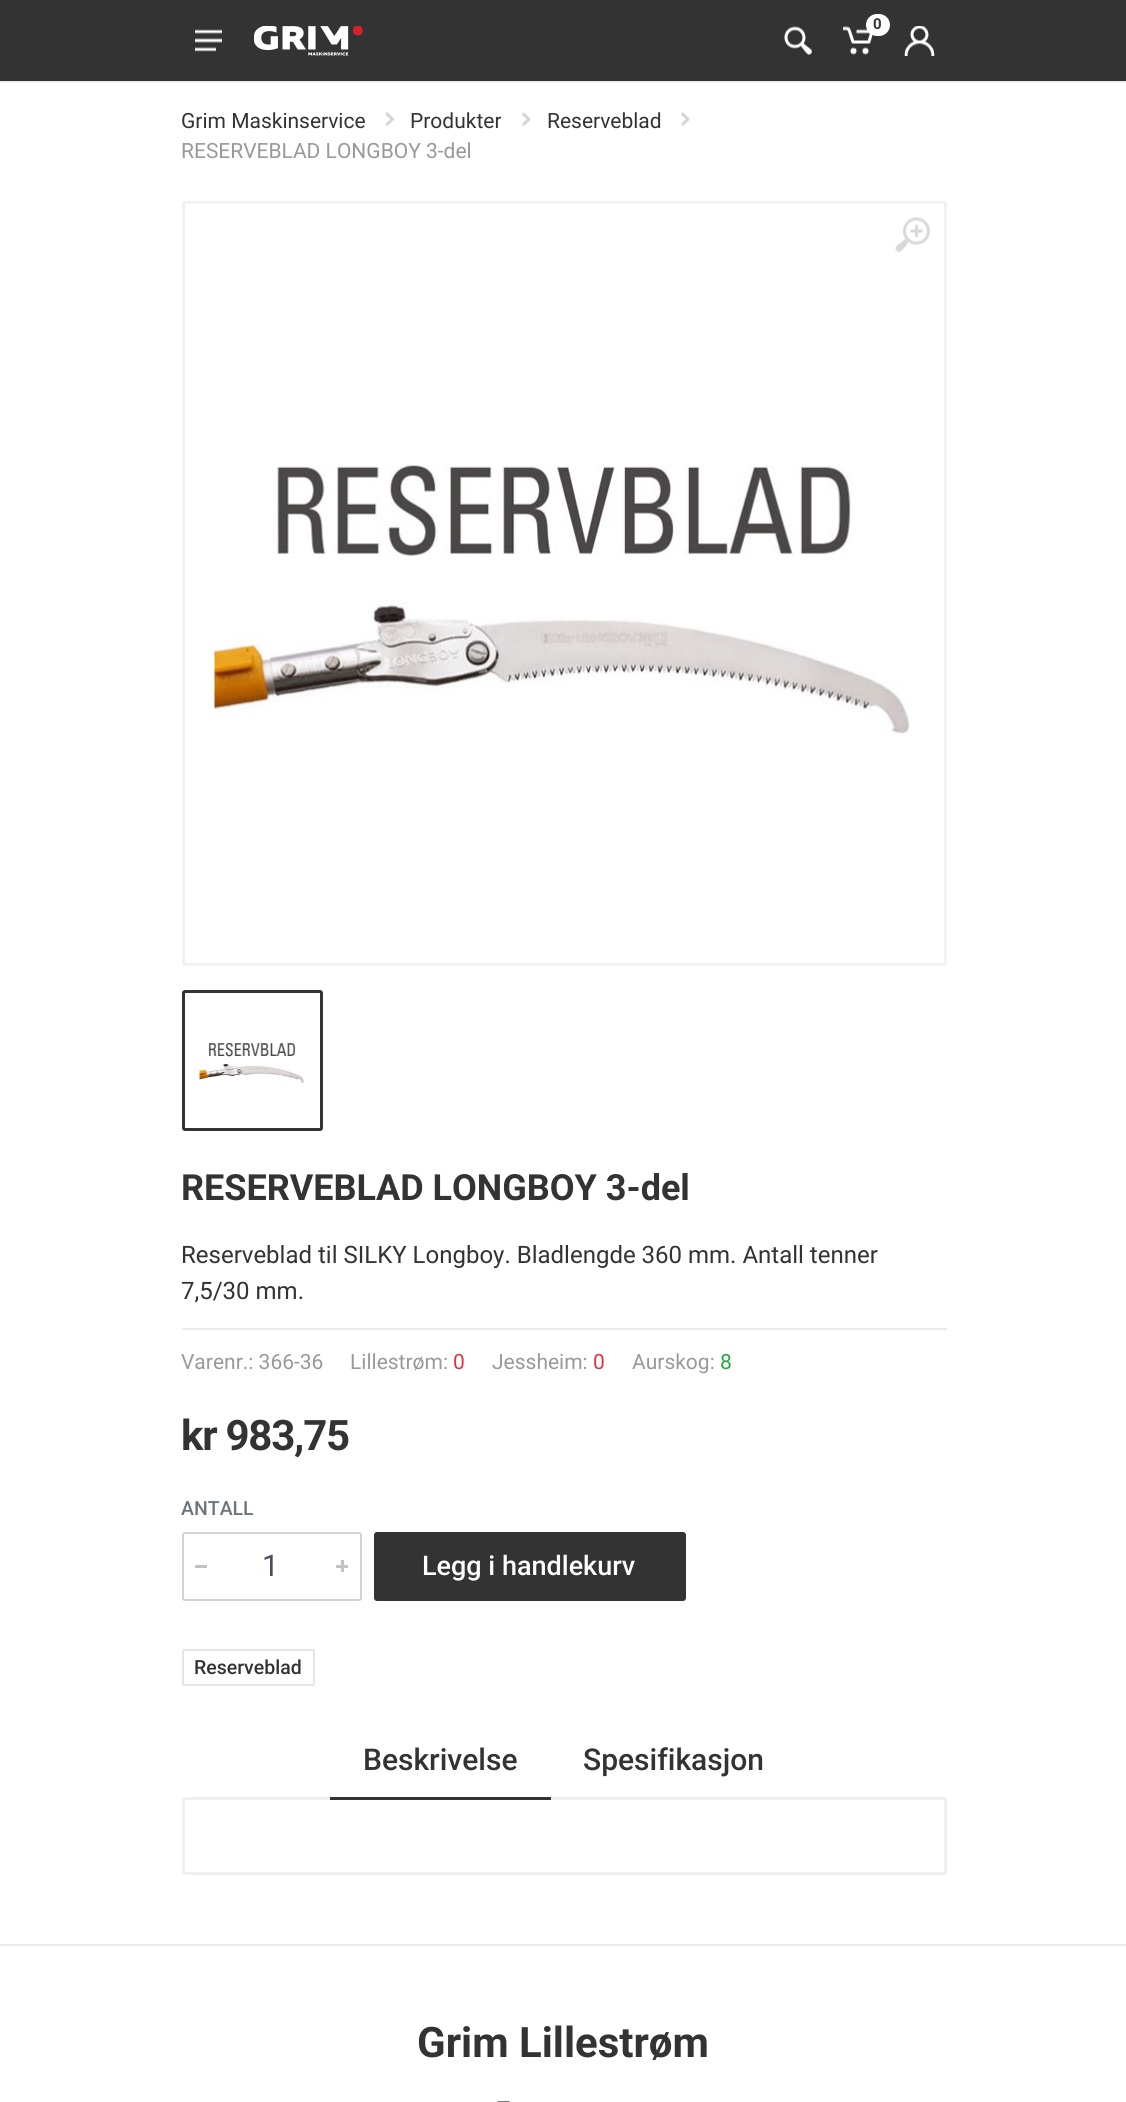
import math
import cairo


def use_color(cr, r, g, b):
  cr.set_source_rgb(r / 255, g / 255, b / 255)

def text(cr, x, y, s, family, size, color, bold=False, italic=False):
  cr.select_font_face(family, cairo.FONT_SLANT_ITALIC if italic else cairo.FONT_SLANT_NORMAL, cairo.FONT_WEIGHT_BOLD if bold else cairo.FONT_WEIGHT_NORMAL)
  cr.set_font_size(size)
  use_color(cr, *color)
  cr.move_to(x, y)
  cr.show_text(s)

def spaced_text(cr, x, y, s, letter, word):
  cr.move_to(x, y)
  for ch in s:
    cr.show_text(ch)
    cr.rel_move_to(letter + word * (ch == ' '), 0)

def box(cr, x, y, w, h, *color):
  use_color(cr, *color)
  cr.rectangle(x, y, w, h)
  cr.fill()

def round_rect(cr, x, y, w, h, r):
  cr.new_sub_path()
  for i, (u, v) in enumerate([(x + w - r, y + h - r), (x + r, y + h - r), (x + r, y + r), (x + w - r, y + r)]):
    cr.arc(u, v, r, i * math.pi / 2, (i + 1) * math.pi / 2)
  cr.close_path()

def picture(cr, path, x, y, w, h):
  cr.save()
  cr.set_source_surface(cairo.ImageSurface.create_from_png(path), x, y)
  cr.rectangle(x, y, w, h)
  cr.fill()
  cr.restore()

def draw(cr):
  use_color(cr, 255, 255, 255)
  cr.paint()
  use_color(cr, 245, 245, 245)
  cr.new_path()
  cr.move_to(0, 81)
  cr.line_to(0, 83)
  cr.line_to(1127, 83)
  cr.line_to(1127, 2)
  cr.line_to(1126, 2)
  cr.line_to(1126, 81)
  cr.close_path()
  cr.fill()
  box(cr, 0, 0, 1126, 81, 51, 51, 51)
  cr.set_source_rgba(0, 0, 0, 0.04)
  cr.rectangle(0, 81, 1126, 1)
  cr.fill()
  picture(cr, "img_01.png", 843, 26, 30, 29)
  use_color(cr, 255, 255, 255)
  round_rect(cr, 866, 14, 24, 22, 11)
  cr.fill()
  picture(cr, "img_02.png", 784, 26, 28, 29)
  picture(cr, "img_03.png", 904, 26, 31, 30)
  picture(cr, "img_04.png", 195, 29, 27, 23)
  picture(cr, "img_05.png", 254, 26, 109, 30)
  picture(cr, "img_06.png", 385, 112, 10, 15)
  picture(cr, "img_07.png", 522, 112, 9, 14)
  picture(cr, "img_07.png", 681, 112, 9, 14)
  round_rect(cr, 183.5, 202.5, 762, 762, 1.5)
  use_color(cr, 242, 242, 242)
  cr.set_line_width(3)
  cr.stroke()
  picture(cr, "img_08.png", 895, 217, 35, 36)
  picture(cr, "img_09.png", 214, 465, 696, 271)
  round_rect(cr, 183.5, 991.5, 138, 138, 1.5)
  use_color(cr, 51, 51, 51)
  cr.stroke()
  picture(cr, "img_10.png", 199, 1043, 105, 40)
  box(cr, 182, 1328, 765, 2, 235, 235, 235)
  round_rect(cr, 183, 1533, 178, 67, 2)
  use_color(cr, 206, 212, 218)
  cr.set_line_width(2)
  cr.stroke()
  box(cr, 195, 1565, 12, 3, 194, 194, 194)
  box(cr, 336, 1565, 12, 3, 194, 194, 194)
  box(cr, 341, 1560, 3, 12, 194, 194, 194)
  use_color(cr, 51, 51, 51)
  round_rect(cr, 375, 1533, 310, 67, 2)
  cr.fill_preserve()
  cr.stroke()
  round_rect(cr, 183, 1650, 131, 35, 1)
  use_color(cr, 229, 229, 229)
  cr.stroke()
  round_rect(cr, 183.5, 1798.5, 762, 75, 1.5)
  use_color(cr, 240, 240, 240)
  cr.set_line_width(3)
  cr.stroke()
  box(cr, 330, 1797, 221, 3, 51, 51, 51)
  box(cr, 0, 1944, 1126, 2, 235, 235, 235)
  picture(cr, "img_11.png", 497, 2101, 13, 1)
  text(cr, 873, 29, "0", "Roboto", 15, (51, 51, 51), bold=True)
  text(cr, 181, 128, "Grim Maskinservice", "Roboto", 21, (51, 51, 51))
  text(cr, 410, 128, "Produkter", "Roboto", 21, (51, 51, 51))
  text(cr, 547, 128, "Reserveblad", "Roboto", 21, (51, 51, 51))
  text(cr, 181, 158, "RESERVEBLAD LONGBOY 3-del", "Roboto", 21, (153, 153, 153))
  text(cr, 181, 1200, "RESERVEBLAD LONGBOY 3-del", "Roboto", 36, (51, 51, 51), bold=True)
  text(cr, 181, 1263, "Reserveblad til SILKY Longboy. Bladlengde 360 mm. Antall tenner", "Roboto", 24, (51, 51, 51))
  text(cr, 181, 1299, "7,5/30 mm.", "Roboto", 24, (51, 51, 51))
  text(cr, 181, 1369, "Varenr.: 366-36", "Roboto", 21, (153, 153, 153))
  text(cr, 350, 1369, "Lillestrøm:", "Roboto", 21, (153, 153, 153))
  text(cr, 453, 1369, "0", "Roboto", 21, (220, 53, 69))
  text(cr, 492, 1369, "Jessheim:", "Roboto", 21, (153, 153, 153))
  text(cr, 593, 1369, "0", "Roboto", 21, (220, 53, 69))
  text(cr, 632, 1369, "Aurskog:", "Roboto", 21, (153, 153, 153))
  text(cr, 720, 1369, "8", "Roboto", 21, (40, 167, 69))
  cr.select_font_face("Roboto", cairo.FONT_SLANT_NORMAL, cairo.FONT_WEIGHT_BOLD)
  cr.set_font_size(42)
  use_color(cr, 51, 51, 51)
  spaced_text(cr, 181, 1450, "kr 983,75", -1.25, 0)
  text(cr, 181, 1515, "ANTALL", "Roboto Medium", 19.5, (108, 117, 125))
  text(cr, 262, 1576, "1", "Roboto", 30, (73, 80, 87))
  text(cr, 422, 1575, "Legg i handlekurv", "Roboto Medium", 27, (255, 255, 255))
  text(cr, 194, 1674, "Reserveblad", "Roboto Medium", 19.5, (51, 51, 51))
  text(cr, 363, 1770, "Beskrivelse", "Roboto Medium", 30, (51, 51, 51))
  text(cr, 583, 1770, "Spesifikasjon", "Roboto Medium", 30, (51, 51, 51))
  text(cr, 417, 2057, "Grim Lillestrøm", "Roboto", 42, (51, 51, 51), bold=True)


surface = cairo.ImageSurface(cairo.FORMAT_RGB24, 1126, 2102)
cr = cairo.Context(surface)
options = cairo.FontOptions()
options.set_hint_metrics(cairo.HINT_METRICS_OFF)
options.set_hint_style(cairo.HINT_STYLE_NONE)
cr.set_font_options(options)
cr.set_miter_limit(4)
draw(cr)
surface.write_to_png("out.png")
